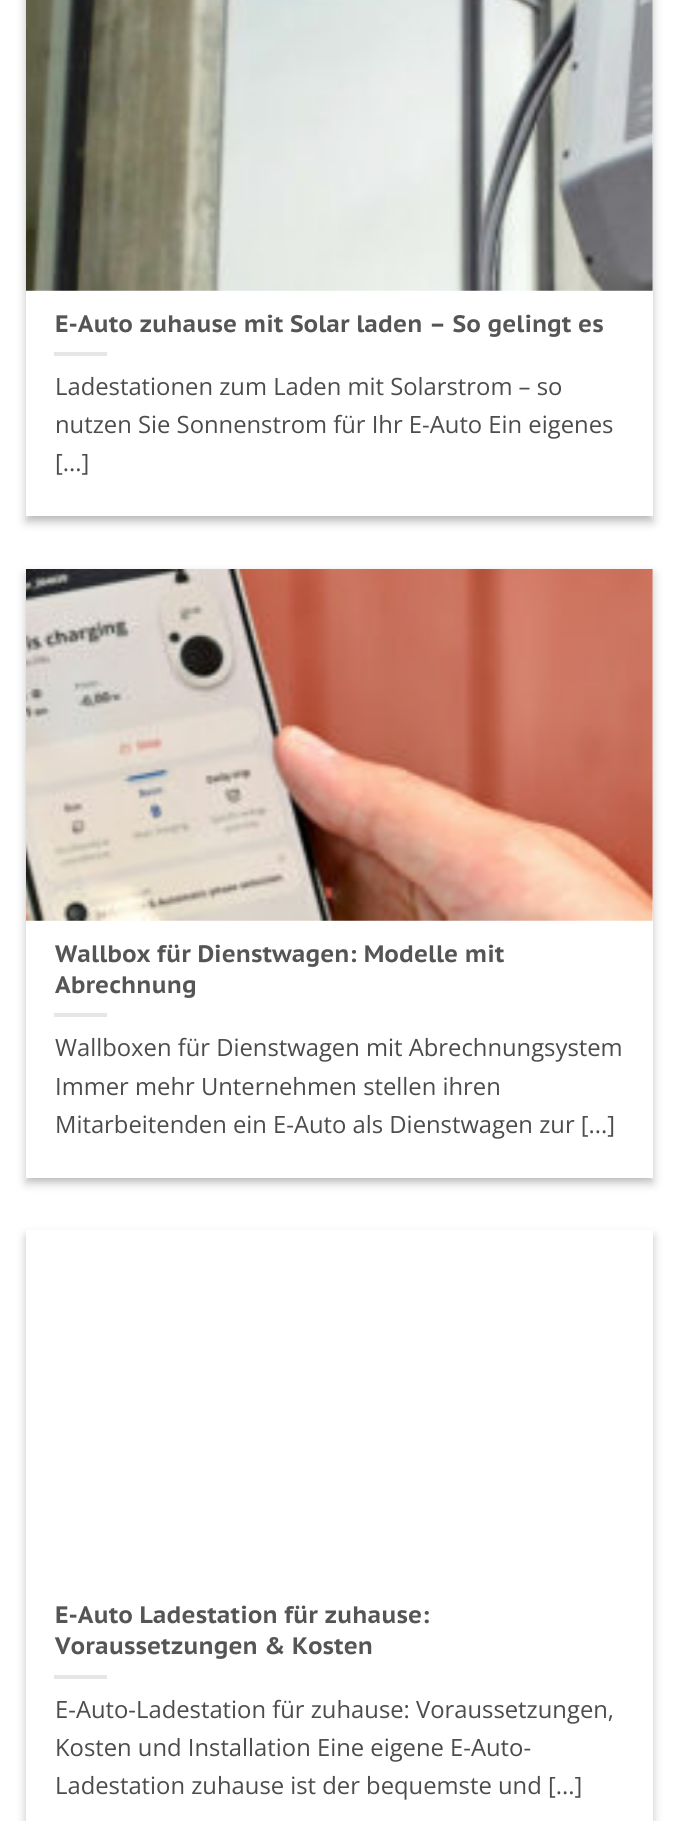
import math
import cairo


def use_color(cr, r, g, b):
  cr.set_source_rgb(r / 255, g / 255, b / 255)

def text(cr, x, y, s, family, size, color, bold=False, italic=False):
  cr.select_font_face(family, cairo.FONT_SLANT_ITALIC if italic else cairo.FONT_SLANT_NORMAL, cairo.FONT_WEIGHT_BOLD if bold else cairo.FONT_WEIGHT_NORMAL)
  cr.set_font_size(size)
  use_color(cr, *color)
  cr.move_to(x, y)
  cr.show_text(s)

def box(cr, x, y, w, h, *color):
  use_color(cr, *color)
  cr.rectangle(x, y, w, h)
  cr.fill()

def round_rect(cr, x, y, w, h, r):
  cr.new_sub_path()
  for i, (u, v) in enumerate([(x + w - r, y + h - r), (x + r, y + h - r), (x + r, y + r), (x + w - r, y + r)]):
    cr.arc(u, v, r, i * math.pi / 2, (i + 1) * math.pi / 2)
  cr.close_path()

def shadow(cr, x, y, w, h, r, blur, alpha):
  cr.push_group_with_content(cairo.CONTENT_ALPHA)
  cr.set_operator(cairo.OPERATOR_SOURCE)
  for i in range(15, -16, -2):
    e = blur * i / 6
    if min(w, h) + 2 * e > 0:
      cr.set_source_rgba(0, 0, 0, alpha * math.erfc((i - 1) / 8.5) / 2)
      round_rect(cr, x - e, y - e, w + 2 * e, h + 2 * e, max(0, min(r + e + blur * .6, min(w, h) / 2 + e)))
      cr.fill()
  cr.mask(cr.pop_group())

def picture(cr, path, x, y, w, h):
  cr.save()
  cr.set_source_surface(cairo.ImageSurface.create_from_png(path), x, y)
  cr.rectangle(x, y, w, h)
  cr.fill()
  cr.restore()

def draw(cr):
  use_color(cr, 255, 255, 255)
  cr.paint()
  use_color(cr, 0, 0, 0)
  shadow(cr, 26, -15, 627, 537, 0, 5, 0.23)
  shadow(cr, 33, -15, 613, 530, 0, 5, 0.16)
  box(cr, 26, 0, 627, 516, 255, 255, 255)
  picture(cr, "img_01.png", 26, 0, 627, 291)
  box(cr, 54, 352, 53, 4, 230, 230, 230)
  use_color(cr, 0, 0, 0)
  shadow(cr, 26, 574, 627, 609, 0, 5, 0.23)
  shadow(cr, 33, 581, 613, 595, 0, 5, 0.16)
  box(cr, 26, 569, 627, 609, 255, 255, 255)
  picture(cr, "img_02.png", 26, 569, 627, 352)
  box(cr, 54, 1013, 53, 4, 230, 230, 230)
  use_color(cr, 0, 0, 0)
  shadow(cr, 26, 1236, 627, 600, 0, 5, 0.23)
  box(cr, 26, 1230, 627, 591, 255, 255, 255)
  box(cr, 54, 1675, 53, 4, 230, 230, 230)
  text(cr, 55, 332, "E-Auto zuhause mit Solar laden – So gelingt es", "PT Sans Caption", 23.8, (85, 85, 85), bold=True)
  text(cr, 55, 395, "Ladestationen zum Laden mit Solarstrom – so", "Open Sans", 23.8, (76, 76, 76))
  text(cr, 55, 433, "nutzen Sie Sonnenstrom für Ihr E-Auto Ein eigenes", "Open Sans", 23.8, (76, 76, 76))
  text(cr, 55, 471, "[...]", "Open Sans", 23.8, (76, 76, 76))
  text(cr, 55, 962, "Wallbox für Dienstwagen: Modelle mit", "PT Sans Caption", 23.8, (85, 85, 85), bold=True)
  text(cr, 55, 993, "Abrechnung", "PT Sans Caption", 23.8, (85, 85, 85), bold=True)
  text(cr, 55, 1056, "Wallboxen für Dienstwagen mit Abrechnungsystem", "Open Sans", 23.8, (76, 76, 76))
  text(cr, 55, 1095, "Immer mehr Unternehmen stellen ihren", "Open Sans", 23.8, (76, 76, 76))
  text(cr, 55, 1133, "Mitarbeitenden ein E-Auto als Dienstwagen zur [...]", "Open Sans", 23.8, (76, 76, 76))
  text(cr, 55, 1623, "E-Auto Ladestation für zuhause:", "PT Sans Caption", 23.8, (85, 85, 85), bold=True)
  text(cr, 55, 1654, "Voraussetzungen & Kosten", "PT Sans Caption", 23.8, (85, 85, 85), bold=True)
  text(cr, 55, 1718, "E-Auto-Ladestation für zuhause: Voraussetzungen,", "Open Sans", 23.8, (76, 76, 76))
  text(cr, 55, 1756, "Kosten und Installation Eine eigene E-Auto-", "Open Sans", 23.8, (76, 76, 76))
  text(cr, 55, 1794, "Ladestation zuhause ist der bequemste und [...]", "Open Sans", 23.8, (76, 76, 76))


surface = cairo.ImageSurface(cairo.FORMAT_RGB24, 679, 1821)
cr = cairo.Context(surface)
options = cairo.FontOptions()
options.set_hint_metrics(cairo.HINT_METRICS_OFF)
options.set_hint_style(cairo.HINT_STYLE_NONE)
cr.set_font_options(options)
cr.set_miter_limit(4)
draw(cr)
surface.write_to_png("out.png")
